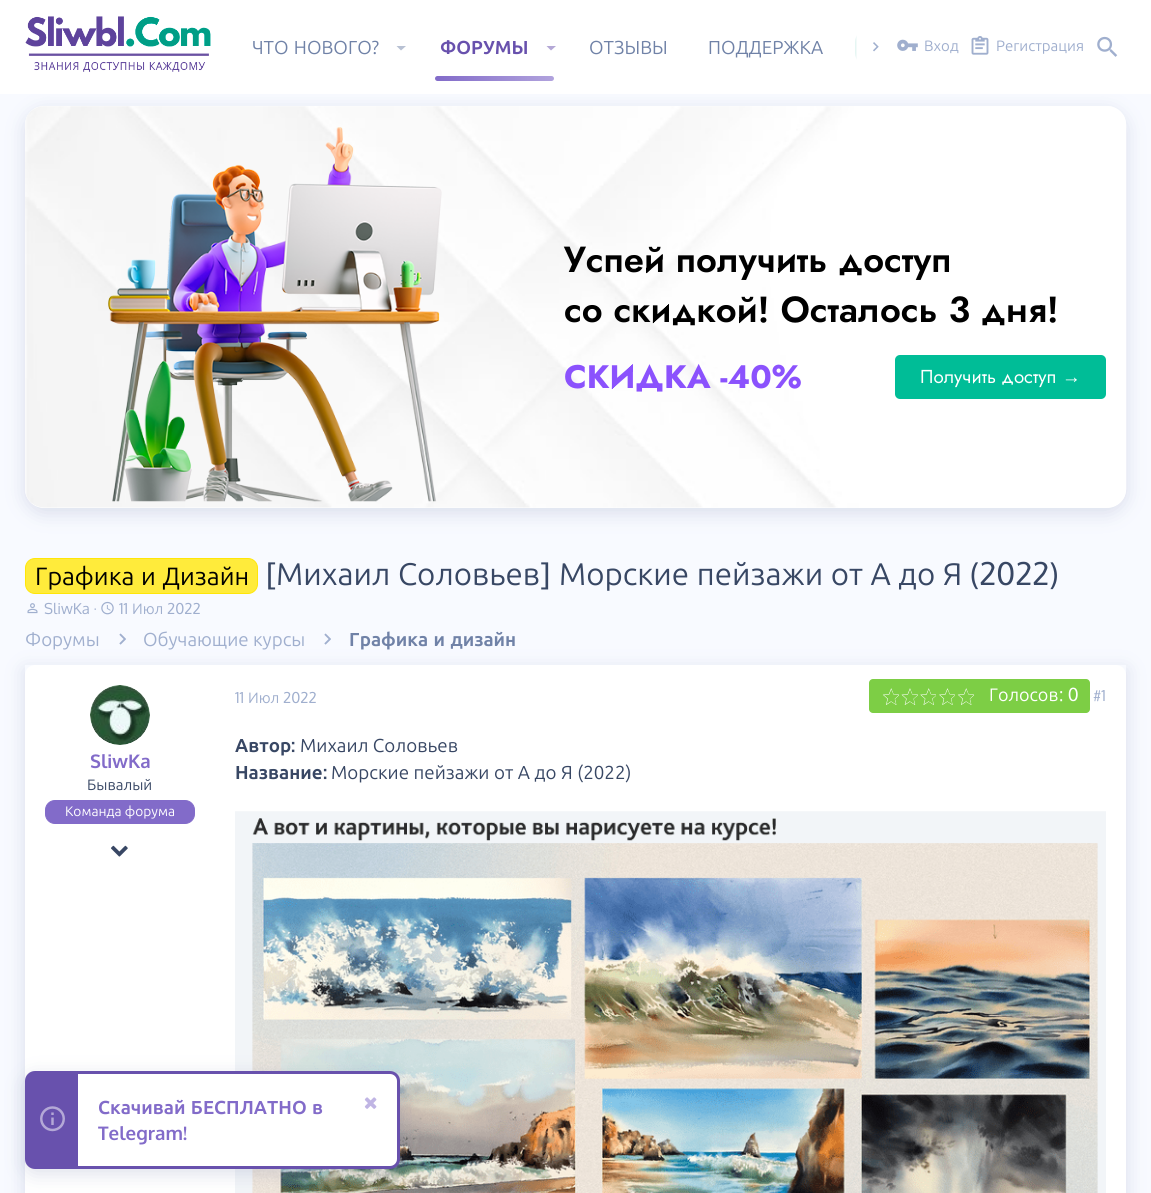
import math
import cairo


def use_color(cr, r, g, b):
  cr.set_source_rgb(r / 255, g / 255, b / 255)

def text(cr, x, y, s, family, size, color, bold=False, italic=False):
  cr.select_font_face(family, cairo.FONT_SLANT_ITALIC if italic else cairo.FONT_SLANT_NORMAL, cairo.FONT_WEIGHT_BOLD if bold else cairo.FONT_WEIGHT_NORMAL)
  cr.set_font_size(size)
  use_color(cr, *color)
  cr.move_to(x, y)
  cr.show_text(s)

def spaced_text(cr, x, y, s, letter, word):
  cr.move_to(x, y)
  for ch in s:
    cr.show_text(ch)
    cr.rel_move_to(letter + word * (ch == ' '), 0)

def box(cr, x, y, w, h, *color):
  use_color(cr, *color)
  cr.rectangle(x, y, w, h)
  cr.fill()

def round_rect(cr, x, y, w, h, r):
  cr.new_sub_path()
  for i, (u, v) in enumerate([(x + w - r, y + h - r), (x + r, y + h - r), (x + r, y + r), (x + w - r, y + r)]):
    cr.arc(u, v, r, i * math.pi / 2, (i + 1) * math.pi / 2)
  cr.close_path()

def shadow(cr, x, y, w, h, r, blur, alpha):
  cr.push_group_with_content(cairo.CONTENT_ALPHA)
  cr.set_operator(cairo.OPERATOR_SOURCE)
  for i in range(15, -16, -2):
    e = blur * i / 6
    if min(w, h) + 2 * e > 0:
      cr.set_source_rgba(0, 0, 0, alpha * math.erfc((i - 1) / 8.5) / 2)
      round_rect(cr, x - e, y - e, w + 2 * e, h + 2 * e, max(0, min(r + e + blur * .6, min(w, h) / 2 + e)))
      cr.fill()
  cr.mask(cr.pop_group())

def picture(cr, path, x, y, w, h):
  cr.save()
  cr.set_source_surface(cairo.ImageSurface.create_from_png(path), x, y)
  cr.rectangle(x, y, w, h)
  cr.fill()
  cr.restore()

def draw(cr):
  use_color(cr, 248, 250, 255)
  cr.paint()
  use_color(cr, 88, 106, 153)
  shadow(cr, 25, 111, 1101, 402, 19, 9.5, 0.2)
  box(cr, 0, 0, 1151, 94, 255, 255, 255)
  picture(cr, "img_01.png", 25, 16, 186, 56)
  use_color(cr, 184, 193, 211)
  cr.new_path()
  cr.move_to(396.5, 46)
  cr.line_to(401, 50.5)
  cr.line_to(406, 46)
  cr.close_path()
  cr.fill()
  use_color(cr, 180, 168, 214)
  cr.new_path()
  cr.move_to(546.5, 46)
  cr.line_to(551, 50.5)
  cr.line_to(556, 46)
  cr.close_path()
  cr.fill()
  gradient = cairo.LinearGradient(435, 79, 554, 79)
  gradient.add_color_stop_rgba(0, 0.51, 0.42, 0.788, 1)
  gradient.add_color_stop_rgba(1, 0.694, 0.639, 0.867, 1)
  cr.set_source(gradient)
  round_rect(cr, 435, 76, 119, 5, 2.5)
  cr.fill()
  use_color(cr, 45, 178, 155)
  cr.new_path()
  cr.move_to(868, 29)
  cr.line_to(891, 29)
  cr.line_to(891, 66)
  cr.line_to(868, 66)
  cr.curve_to(861, 66, 855, 60, 855, 53)
  cr.line_to(855, 42)
  cr.curve_to(855, 35, 861, 29, 868, 29)
  cr.close_path()
  cr.fill()
  gradient = cairo.LinearGradient(841, 47, 891, 47)
  gradient.add_color_stop_rgba(0, 1, 1, 1, 0)
  gradient.add_color_stop_rgba(0.33, 1, 1, 1, 1)
  cr.set_source(gradient)
  cr.rectangle(855, 29, 36, 37)
  cr.fill()
  picture(cr, "img_02.png", 873, 42, 6, 10)
  picture(cr, "img_03.png", 897, 39, 21, 12)
  picture(cr, "img_04.png", 971, 36, 18, 19)
  picture(cr, "img_05.png", 1097, 36, 21, 21)
  use_color(cr, 255, 255, 255)
  round_rect(cr, 25, 106, 1101, 402, 19)
  cr.fill()
  picture(cr, "img_06.png", 25, 106, 1102, 402)
  picture(cr, "img_07.png", 108, 127, 334, 375)
  use_color(cr, 0, 189, 151)
  round_rect(cr, 895, 355, 211, 44, 5)
  cr.fill()
  use_color(cr, 255, 235, 59)
  round_rect(cr, 25.5, 558.5, 232, 35, 9.5)
  cr.fill_preserve()
  use_color(cr, 255, 230, 8)
  cr.set_line_width(1)
  cr.stroke()
  picture(cr, "img_08.png", 27, 603, 11, 11)
  picture(cr, "img_09.png", 101, 601, 13, 14)
  cr.save()
  cr.set_fill_rule(cairo.FILL_RULE_EVEN_ODD)
  cr.new_path()
  cr.move_to(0, 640)
  cr.line_to(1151, 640)
  cr.line_to(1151, 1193)
  cr.line_to(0, 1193)
  cr.close_path()
  cr.move_to(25, 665)
  cr.line_to(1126, 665)
  cr.line_to(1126, 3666)
  cr.line_to(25, 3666)
  cr.close_path()
  cr.clip()
  use_color(cr, 88, 106, 153)
  shadow(cr, 25, 670, 1101, 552, 0, 9.5, 0.2)
  cr.restore()
  picture(cr, "img_10.png", 119, 633, 7, 12)
  picture(cr, "img_10.png", 324, 633, 7, 12)
  use_color(cr, 255, 255, 255)
  cr.new_path()
  cr.move_to(35, 665)
  cr.line_to(1116, 665)
  cr.curve_to(1121.5, 665, 1126, 669.5, 1126, 675)
  cr.line_to(1126, 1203)
  cr.line_to(25, 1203)
  cr.line_to(25, 675)
  cr.curve_to(25, 669.5, 29.5, 665, 35, 665)
  cr.close_path()
  cr.fill()
  picture(cr, "img_11.png", 90, 685, 60, 60)
  use_color(cr, 130, 107, 201)
  round_rect(cr, 45.5, 800.5, 149, 23, 9.5)
  cr.fill_preserve()
  cr.stroke()
  picture(cr, "img_12.png", 111, 845, 17, 12)
  use_color(cr, 125, 206, 69)
  round_rect(cr, 869, 679, 221, 34, 4)
  cr.fill()
  picture(cr, "img_13.png", 882, 688, 17, 17)
  picture(cr, "img_14.png", 901, 688, 17, 17)
  picture(cr, "img_15.png", 920, 688, 16, 17)
  picture(cr, "img_16.png", 939, 688, 16, 17)
  picture(cr, "img_13.png", 957, 688, 17, 17)
  picture(cr, "img_17.png", 235, 811, 871, 382)
  use_color(cr, 88, 106, 153)
  shadow(cr, 25, 1076, 375, 98, 10, 9.5, 0.2)
  use_color(cr, 255, 255, 255)
  round_rect(cr, 26.5, 1072.5, 372, 95, 8.5)
  cr.fill_preserve()
  use_color(cr, 104, 81, 173)
  cr.set_line_width(3)
  cr.stroke()
  box(cr, 28, 1074, 50, 92, 104, 81, 173)
  picture(cr, "img_18.png", 40, 1106, 25, 26)
  picture(cr, "img_19.png", 364, 1097, 13, 12)
  cr.select_font_face("Ubuntu")
  cr.set_font_size(18.75)
  use_color(cr, 112, 130, 167)
  spaced_text(cr, 252, 54, "ЧТО НОВОГО?", 0, 1)
  text(cr, 440, 54, "ФОРУМЫ", "Ubuntu", 18.75, (104, 81, 173), bold=True)
  text(cr, 589, 54, "ОТЗЫВЫ", "Ubuntu", 18.75, (112, 130, 167))
  text(cr, 708, 54, "ПОДДЕРЖКА", "Ubuntu", 18.75, (112, 130, 167))
  text(cr, 924, 51, "Вход", "Ubuntu", 15, (160, 175, 206))
  text(cr, 996, 51, "Регистрация", "Ubuntu", 15, (160, 175, 206))
  text(cr, 564, 272, "Успей получить доступ", "Jost SemiBold", 36.25, (0, 0, 0))
  text(cr, 564, 322, "со скидкой! Осталось 3 дня!", "Jost SemiBold", 36.25, (0, 0, 0))
  text(cr, 564, 388, "СКИДКА -40%", "Jost", 32.5, (139, 82, 253), bold=True)
  text(cr, 920, 383, "Получить доступ", "Jost", 18.75, (255, 255, 255))
  text(cr, 1062, 383, "→", "Liberation Sans", 18.75, (255, 255, 255))
  cr.select_font_face("Ubuntu")
  cr.set_font_size(25)
  use_color(cr, 0, 0, 0)
  spaced_text(cr, 35, 585, "Графика и Дизайн", 0, 1)
  text(cr, 266, 585, "[", "Oxygen", 31.25, (56, 71, 100))
  cr.select_font_face("Ubuntu")
  spaced_text(cr, 276, 585, "Михаил Соловьев", 0, 0.5)
  text(cr, 540, 585, "]", "Oxygen", 31.25, (56, 71, 100))
  cr.select_font_face("Ubuntu")
  spaced_text(cr, 559, 585, "Морские пейзажи от А до Я", 0, 0.5)
  text(cr, 970, 585, "(2022)", "Oxygen", 31.25, (56, 71, 100))
  text(cr, 44, 614, "SliwKa ·", "Oxygen", 15, (160, 175, 206))
  text(cr, 119, 614, "11", "Oxygen", 15, (160, 175, 206))
  text(cr, 132, 614, "Июл", "Ubuntu", 15, (160, 175, 206))
  text(cr, 167, 614, "2022", "Oxygen", 15, (160, 175, 206))
  text(cr, 25, 646, "Форумы", "Ubuntu", 18.75, (160, 175, 206))
  text(cr, 143, 646, "Обучающие курсы", "Ubuntu", 18.75, (160, 175, 206))
  cr.select_font_face("Ubuntu", cairo.FONT_SLANT_NORMAL, cairo.FONT_WEIGHT_BOLD)
  use_color(cr, 112, 130, 167)
  spaced_text(cr, 349, 646, "Графика и дизайн", 0, 1)
  text(cr, 90, 768, "SliwKa", "Oxygen", 18.75, (130, 107, 201), bold=True)
  text(cr, 87, 790, "Бывалый", "Ubuntu", 15, (56, 71, 100))
  text(cr, 65, 816, "Команда форума", "Ubuntu", 13.75, (255, 255, 255))
  text(cr, 235, 703, "11", "Oxygen", 15, (160, 175, 206))
  text(cr, 248, 703, "Июл", "Ubuntu", 15, (160, 175, 206))
  text(cr, 283, 703, "2022", "Oxygen", 15, (160, 175, 206))
  text(cr, 989, 701, "Голосов", "Ubuntu", 18, (255, 255, 255))
  text(cr, 1059, 701, ": 0", "Oxygen", 18, (255, 255, 255))
  text(cr, 1093, 701, "#1", "Oxygen", 15, (160, 175, 206))
  text(cr, 235, 752, "Автор", "Ubuntu", 18.75, (56, 71, 100), bold=True)
  text(cr, 291, 752, ":", "Oxygen", 18.75, (56, 71, 100), bold=True)
  text(cr, 300, 752, "Михаил Соловьев", "Ubuntu", 18.75, (56, 71, 100))
  text(cr, 235, 779, "Название", "Ubuntu", 18.75, (56, 71, 100), bold=True)
  text(cr, 323, 779, ":", "Oxygen", 18.75, (56, 71, 100), bold=True)
  cr.select_font_face("Ubuntu")
  spaced_text(cr, 331, 779, "Морские пейзажи от А до Я (2022)", 0, 0.25)
  cr.select_font_face("Ubuntu", cairo.FONT_SLANT_NORMAL, cairo.FONT_WEIGHT_BOLD)
  use_color(cr, 130, 107, 201)
  spaced_text(cr, 98, 1114, "Скачивай БЕСПЛАТНО в", 0, 1)
  text(cr, 98, 1140, "Telegram!", "Oxygen", 18.75, (130, 107, 201), bold=True)


surface = cairo.ImageSurface(cairo.FORMAT_RGB24, 1151, 1193)
cr = cairo.Context(surface)
options = cairo.FontOptions()
options.set_hint_metrics(cairo.HINT_METRICS_OFF)
options.set_hint_style(cairo.HINT_STYLE_NONE)
cr.set_font_options(options)
cr.set_miter_limit(4)
draw(cr)
surface.write_to_png("out.png")
